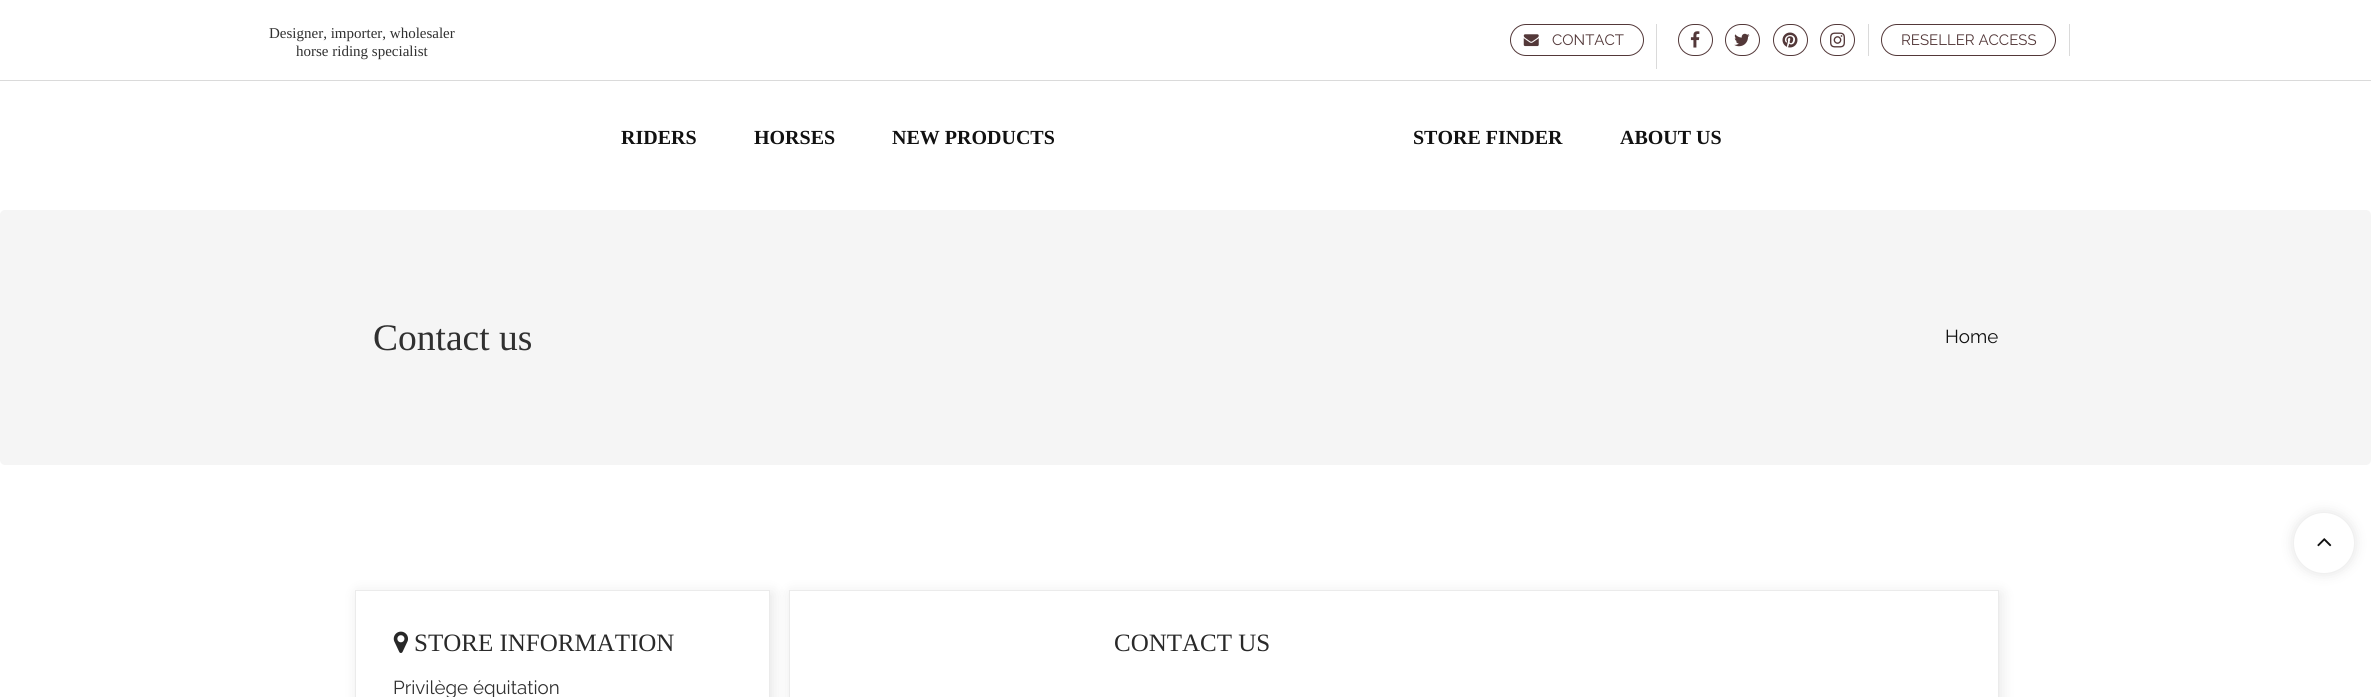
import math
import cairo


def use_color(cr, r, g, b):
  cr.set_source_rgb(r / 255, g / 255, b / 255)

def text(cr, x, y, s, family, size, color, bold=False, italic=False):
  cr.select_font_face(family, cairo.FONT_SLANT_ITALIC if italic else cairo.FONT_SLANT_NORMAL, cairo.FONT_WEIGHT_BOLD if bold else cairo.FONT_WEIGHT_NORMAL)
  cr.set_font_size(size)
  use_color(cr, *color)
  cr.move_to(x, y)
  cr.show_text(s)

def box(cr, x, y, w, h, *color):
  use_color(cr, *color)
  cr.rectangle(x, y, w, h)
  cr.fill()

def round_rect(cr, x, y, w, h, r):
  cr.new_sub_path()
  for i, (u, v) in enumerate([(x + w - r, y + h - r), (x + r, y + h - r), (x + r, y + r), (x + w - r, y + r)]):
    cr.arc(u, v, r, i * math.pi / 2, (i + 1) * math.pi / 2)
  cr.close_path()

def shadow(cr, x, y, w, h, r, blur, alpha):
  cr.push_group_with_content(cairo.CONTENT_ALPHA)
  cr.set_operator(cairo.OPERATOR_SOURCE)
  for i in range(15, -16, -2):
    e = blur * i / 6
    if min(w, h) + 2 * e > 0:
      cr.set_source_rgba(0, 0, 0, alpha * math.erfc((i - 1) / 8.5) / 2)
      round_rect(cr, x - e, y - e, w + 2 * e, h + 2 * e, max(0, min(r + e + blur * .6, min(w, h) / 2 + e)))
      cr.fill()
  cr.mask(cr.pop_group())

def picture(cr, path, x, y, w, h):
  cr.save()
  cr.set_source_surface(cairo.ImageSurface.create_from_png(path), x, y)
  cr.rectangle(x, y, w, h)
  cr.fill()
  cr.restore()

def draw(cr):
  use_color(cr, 255, 255, 255)
  cr.paint()
  box(cr, 0, 80, 2371, 1, 218, 218, 218)
  box(cr, 1656, 24, 1, 45, 218, 218, 218)
  round_rect(cr, 1510.5, 24.5, 133, 31, 15.5)
  use_color(cr, 83, 56, 57)
  cr.set_line_width(1)
  cr.stroke()
  picture(cr, "img_01.png", 1523, 34, 16, 13)
  box(cr, 1868, 24, 1, 32, 218, 218, 218)
  round_rect(cr, 1678.5, 24.5, 34, 31, 15.5)
  use_color(cr, 83, 56, 57)
  cr.stroke()
  picture(cr, "img_02.png", 1690, 31, 10, 17)
  round_rect(cr, 1725.5, 24.5, 34, 31, 15.5)
  cr.stroke()
  picture(cr, "img_03.png", 1734, 33, 16, 14)
  round_rect(cr, 1773.5, 24.5, 34, 31, 15.5)
  cr.stroke()
  picture(cr, "img_04.png", 1782, 32, 16, 16)
  round_rect(cr, 1820.5, 24.5, 34, 31, 15.5)
  cr.stroke()
  picture(cr, "img_05.png", 1830, 32, 15, 16)
  box(cr, 2069, 24, 1, 32, 218, 218, 218)
  round_rect(cr, 1881.5, 24.5, 174, 31, 15.5)
  use_color(cr, 83, 56, 57)
  cr.stroke()
  use_color(cr, 245, 245, 245)
  round_rect(cr, 0, 210, 2371, 255, 5)
  cr.fill()
  use_color(cr, 0, 0, 0)
  shadow(cr, 2294, 513, 60, 60, 30, 7, 0.12)
  use_color(cr, 255, 255, 255)
  cr.arc(2324, 543, 30, 0, 2 * math.pi)
  cr.fill()
  picture(cr, "img_06.png", 2317, 538, 15, 9)
  cr.save()
  cr.set_fill_rule(cairo.FILL_RULE_EVEN_ODD)
  cr.new_path()
  cr.move_to(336, 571)
  cr.line_to(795, 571)
  cr.line_to(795, 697)
  cr.line_to(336, 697)
  cr.close_path()
  cr.move_to(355, 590)
  cr.line_to(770, 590)
  cr.line_to(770, 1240)
  cr.line_to(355, 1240)
  cr.close_path()
  cr.clip()
  use_color(cr, 0, 0, 0)
  shadow(cr, 358, 593, 415, 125, 0, 7, 0.1)
  cr.restore()
  cr.rectangle(355.5, 590.5, 414, 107)
  use_color(cr, 235, 235, 235)
  cr.stroke()
  picture(cr, "img_07.png", 393, 631, 15, 22)
  cr.save()
  cr.set_fill_rule(cairo.FILL_RULE_EVEN_ODD)
  cr.new_path()
  cr.move_to(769, 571)
  cr.line_to(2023, 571)
  cr.line_to(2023, 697)
  cr.line_to(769, 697)
  cr.close_path()
  cr.move_to(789, 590)
  cr.line_to(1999, 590)
  cr.line_to(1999, 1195)
  cr.line_to(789, 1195)
  cr.close_path()
  cr.clip()
  use_color(cr, 0, 0, 0)
  shadow(cr, 791, 593, 1210, 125, 0, 7, 0.1)
  cr.restore()
  cr.rectangle(789.5, 590.5, 1209, 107)
  cr.stroke()
  text(cr, 269, 38, "Designer, importer, wholesaler", "Liberation Serif", 15, (48, 48, 48))
  text(cr, 296, 56, "horse riding specialist", "Liberation Serif", 15, (48, 48, 48))
  text(cr, 1552, 45, "CONTACT", "Raleway Thin", 15, (83, 56, 57))
  text(cr, 1901, 45, "RESELLER ACCESS", "Raleway Thin", 15, (83, 56, 57))
  text(cr, 621, 144, "RIDERS", "Liberation Serif", 20, (17, 17, 17), bold=True)
  text(cr, 754, 144, "HORSES", "Liberation Serif", 20, (17, 17, 17), bold=True)
  text(cr, 892, 144, "NEW PRODUCTS", "Liberation Serif", 20, (17, 17, 17), bold=True)
  text(cr, 1413, 144, "STORE FINDER", "Liberation Serif", 20, (17, 17, 17), bold=True)
  text(cr, 1620, 144, "ABOUT US", "Liberation Serif", 20, (17, 17, 17), bold=True)
  text(cr, 373, 350, "Contact us", "Liberation Serif", 37.5, (48, 48, 48))
  text(cr, 1945, 343, "Home", "Raleway Thin", 18.75, (17, 17, 17))
  text(cr, 414, 651, "STORE INFORMATION", "Liberation Serif", 25, (41, 41, 41))
  text(cr, 393, 694, "Privilège équitation", "Raleway Thin", 18.75, (48, 48, 48))
  text(cr, 1114, 651, "CONTACT US", "Liberation Serif", 25, (41, 41, 41))


surface = cairo.ImageSurface(cairo.FORMAT_RGB24, 2371, 697)
cr = cairo.Context(surface)
options = cairo.FontOptions()
options.set_hint_metrics(cairo.HINT_METRICS_OFF)
options.set_hint_style(cairo.HINT_STYLE_NONE)
cr.set_font_options(options)
cr.set_miter_limit(4)
draw(cr)
surface.write_to_png("out.png")
